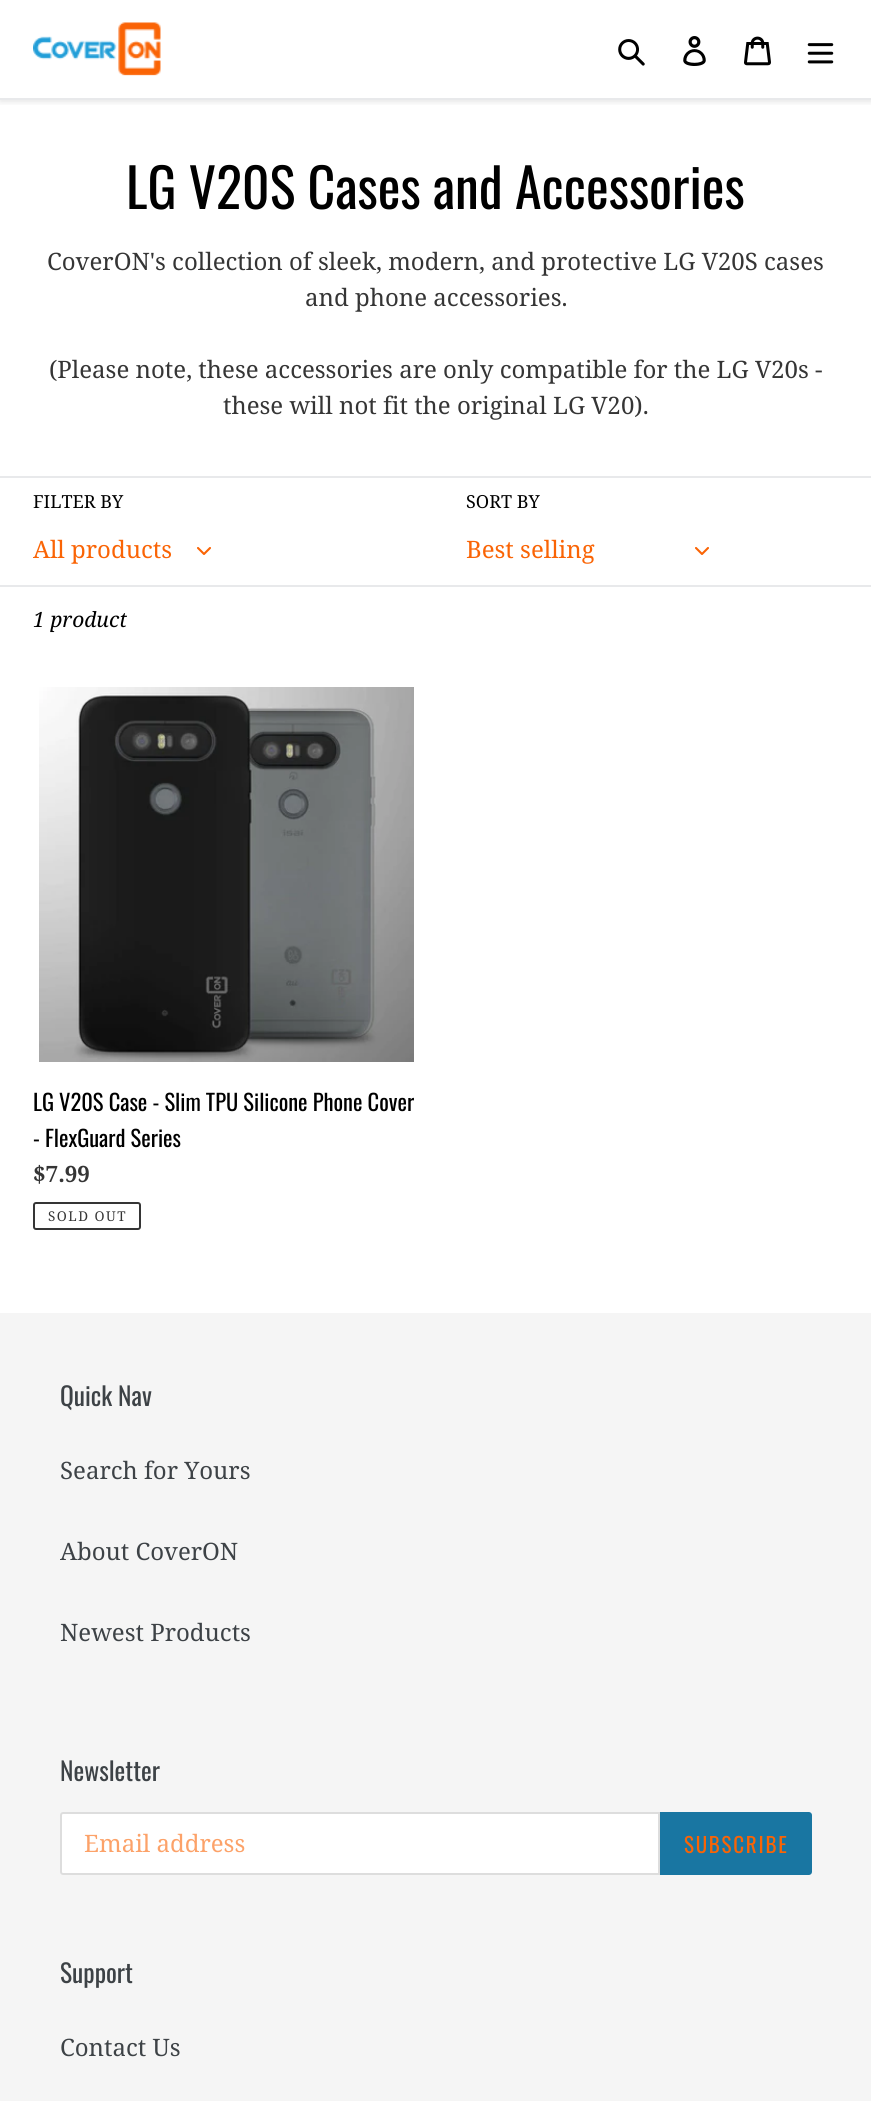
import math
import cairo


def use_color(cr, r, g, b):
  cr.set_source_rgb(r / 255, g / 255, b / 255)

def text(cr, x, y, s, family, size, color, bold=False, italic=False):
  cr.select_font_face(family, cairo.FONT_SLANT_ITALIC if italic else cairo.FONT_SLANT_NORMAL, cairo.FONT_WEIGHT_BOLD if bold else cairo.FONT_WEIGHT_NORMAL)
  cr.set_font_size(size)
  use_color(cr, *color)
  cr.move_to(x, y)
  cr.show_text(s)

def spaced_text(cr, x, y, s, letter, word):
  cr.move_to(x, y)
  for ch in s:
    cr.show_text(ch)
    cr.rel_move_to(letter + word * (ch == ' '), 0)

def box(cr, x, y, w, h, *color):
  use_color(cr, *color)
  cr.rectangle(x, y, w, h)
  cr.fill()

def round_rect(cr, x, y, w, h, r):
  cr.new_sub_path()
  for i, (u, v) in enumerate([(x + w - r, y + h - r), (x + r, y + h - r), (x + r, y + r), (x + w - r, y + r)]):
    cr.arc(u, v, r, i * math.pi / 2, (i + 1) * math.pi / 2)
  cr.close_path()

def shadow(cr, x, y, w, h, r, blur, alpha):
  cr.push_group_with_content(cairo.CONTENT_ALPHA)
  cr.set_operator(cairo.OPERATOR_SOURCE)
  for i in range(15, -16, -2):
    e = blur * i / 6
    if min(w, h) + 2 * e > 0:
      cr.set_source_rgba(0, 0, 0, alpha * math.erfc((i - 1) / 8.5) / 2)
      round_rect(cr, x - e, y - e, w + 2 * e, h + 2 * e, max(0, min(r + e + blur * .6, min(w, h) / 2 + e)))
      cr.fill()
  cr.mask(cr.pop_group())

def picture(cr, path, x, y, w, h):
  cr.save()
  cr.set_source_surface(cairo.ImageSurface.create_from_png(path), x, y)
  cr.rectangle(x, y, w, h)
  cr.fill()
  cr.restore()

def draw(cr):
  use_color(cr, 255, 255, 255)
  cr.paint()
  cr.save()
  cr.rectangle(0, 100, 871, 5)
  cr.clip()
  use_color(cr, 0, 0, 0)
  shadow(cr, 0, 3, 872, 99, 0, 3, 0.1)
  cr.restore()
  box(cr, 0, 98, 871, 2, 232, 233, 235)
  picture(cr, "img_01.png", 33, 22, 128, 54)
  picture(cr, "img_02.png", 618, 39, 27, 27)
  picture(cr, "img_03.png", 683, 36, 23, 30)
  picture(cr, "img_04.png", 744, 36, 27, 30)
  picture(cr, "img_05.png", 807, 43, 27, 21)
  box(cr, 0, 476, 871, 2, 232, 233, 235)
  picture(cr, "img_06.png", 197, 547, 14, 8)
  picture(cr, "img_06.png", 695, 547, 14, 8)
  box(cr, 0, 585, 871, 2, 232, 233, 235)
  picture(cr, "img_07.png", 39, 687, 375, 375)
  round_rect(cr, 34, 1203, 106, 26, 2)
  use_color(cr, 53, 53, 53)
  cr.stroke()
  box(cr, 0, 1313, 871, 788, 245, 245, 245)
  use_color(cr, 255, 255, 255)
  cr.new_path()
  cr.move_to(63, 1813)
  cr.line_to(659, 1813)
  cr.line_to(659, 1874)
  cr.line_to(63, 1874)
  cr.curve_to(62, 1874, 61, 1873, 61, 1872)
  cr.line_to(61, 1815)
  cr.curve_to(61, 1814, 62, 1813, 63, 1813)
  cr.close_path()
  cr.fill_preserve()
  use_color(cr, 221, 221, 221)
  cr.stroke()
  use_color(cr, 25, 118, 162)
  cr.new_path()
  cr.move_to(660, 1812)
  cr.line_to(809, 1812)
  cr.curve_to(810.5, 1812, 812, 1813.5, 812, 1815)
  cr.line_to(812, 1872)
  cr.curve_to(812, 1873.5, 810.5, 1875, 809, 1875)
  cr.line_to(660, 1875)
  cr.close_path()
  cr.fill()
  text(cr, 126, 209, "LG V20S Cases and Accessories", "Oswald", 54, (0, 0, 0))
  text(cr, 47, 270, "CoverON's collection of sleek, modern, and protective LG V20S cases", "Noto Serif", 24, (53, 53, 53))
  text(cr, 305, 306, "and phone accessories.", "Noto Serif", 24, (53, 53, 53))
  text(cr, 49, 378, "(Please note, these accessories are only compatible for the LG V20s -", "Noto Serif", 24, (53, 53, 53))
  text(cr, 223, 414, "these will not fit the original LG V20).", "Noto Serif", 24, (53, 53, 53))
  text(cr, 33, 508, "FILTER BY", "Noto Serif", 18, (0, 0, 0))
  text(cr, 33, 558, "All products", "Noto Serif", 24, (250, 100, 5))
  text(cr, 466, 508, "SORT BY", "Noto Serif", 18, (0, 0, 0))
  text(cr, 466, 558, "Best selling", "Noto Serif", 24, (250, 100, 5))
  text(cr, 33, 627, "1 product", "Noto Serif", 21, (0, 0, 0), italic=True)
  text(cr, 33, 1111, "LG V20S Case - Slim TPU Silicone Phone Cover", "Oswald", 22.5, (0, 0, 0))
  text(cr, 33, 1147, "- FlexGuard Series", "Oswald", 22.5, (0, 0, 0))
  text(cr, 33, 1182, "$7.99", "Noto Serif", 22.5, (53, 53, 53), bold=True)
  cr.select_font_face("Noto Serif")
  cr.set_font_size(13.5)
  spaced_text(cr, 48, 1221, "SOLD OUT", 1.5, 0)
  text(cr, 60, 1406, "Quick Nav", "Oswald", 25.5, (61, 66, 70))
  text(cr, 60, 1479, "Search for Yours", "Noto Serif", 24, (61, 66, 70))
  text(cr, 60, 1560, "About CoverON", "Noto Serif", 24, (61, 66, 70))
  text(cr, 60, 1641, "Newest Products", "Noto Serif", 24, (61, 66, 70))
  text(cr, 60, 1781, "Newsletter", "Oswald", 25.5, (61, 66, 70))
  text(cr, 84, 1852, "Email address", "Noto Serif", 24, (252, 162, 105))
  cr.select_font_face("Oswald")
  cr.set_font_size(21)
  use_color(cr, 250, 100, 5)
  spaced_text(cr, 684, 1853, "SUBSCRIBE", 1.75, 0)
  text(cr, 60, 1983, "Support", "Oswald", 25.5, (61, 66, 70))
  text(cr, 60, 2056, "Contact Us", "Noto Serif", 24, (61, 66, 70))


surface = cairo.ImageSurface(cairo.FORMAT_RGB24, 871, 2101)
cr = cairo.Context(surface)
options = cairo.FontOptions()
options.set_hint_metrics(cairo.HINT_METRICS_OFF)
options.set_hint_style(cairo.HINT_STYLE_NONE)
cr.set_font_options(options)
cr.set_miter_limit(4)
draw(cr)
surface.write_to_png("out.png")
